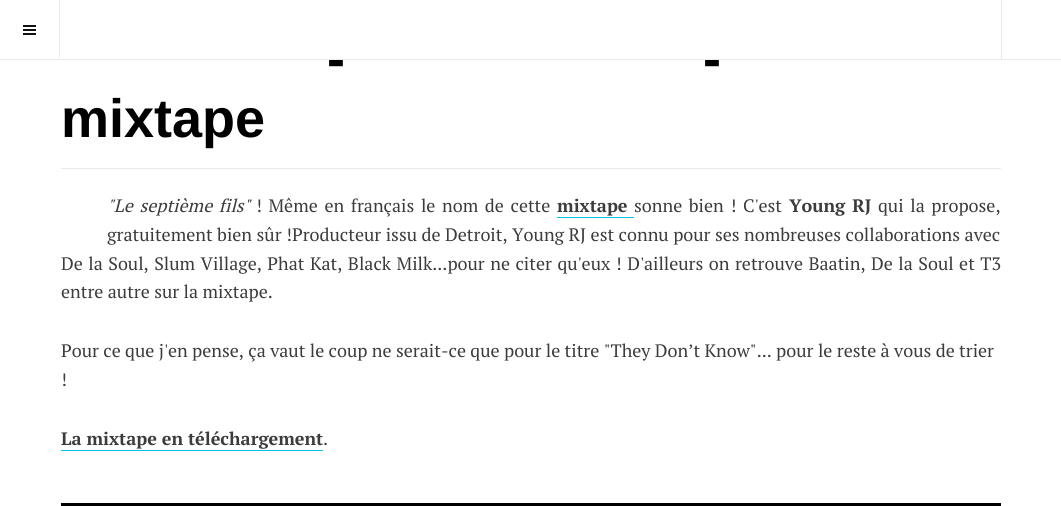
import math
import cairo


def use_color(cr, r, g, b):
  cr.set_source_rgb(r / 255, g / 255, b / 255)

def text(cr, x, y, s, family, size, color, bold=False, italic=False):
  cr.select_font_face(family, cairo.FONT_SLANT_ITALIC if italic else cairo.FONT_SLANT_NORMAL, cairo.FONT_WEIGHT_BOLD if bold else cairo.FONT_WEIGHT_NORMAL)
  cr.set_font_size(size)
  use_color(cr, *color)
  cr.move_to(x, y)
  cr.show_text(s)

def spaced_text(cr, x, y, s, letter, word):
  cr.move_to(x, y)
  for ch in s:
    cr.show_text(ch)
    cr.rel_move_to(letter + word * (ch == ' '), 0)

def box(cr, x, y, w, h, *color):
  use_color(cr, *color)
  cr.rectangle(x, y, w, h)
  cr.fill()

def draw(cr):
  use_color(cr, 255, 255, 255)
  cr.paint()
  box(cr, 59, 0, 1, 58, 234, 234, 234)
  box(cr, 23, 29, 13, 2, 17, 17, 17)
  box(cr, 23, 25, 13, 2, 17, 17, 17)
  box(cr, 23, 33, 13, 2, 17, 17, 17)
  box(cr, 1001, 0, 1, 59, 234, 234, 234)
  box(cr, 61, 168, 940, 1, 234, 234, 234)
  box(cr, 557, 217, 77, 1, 0, 191, 230)
  box(cr, 61, 450, 262, 1, 0, 191, 230)
  box(cr, 61, 503, 940, 3, 0, 0, 0)
  text(cr, 327, 77, "-", "Liberation Sans", 54, (0, 0, 0), bold=True)
  text(cr, 703, 77, "-", "Liberation Sans", 54, (0, 0, 0), bold=True)
  box(cr, 0, 59, 1061, 1, 234, 234, 234)
  text(cr, 61, 137, "mixtape", "Liberation Sans", 54, (0, 0, 0), bold=True)
  cr.select_font_face("PT Serif", cairo.FONT_SLANT_ITALIC)
  cr.set_font_size(18)
  use_color(cr, 60, 60, 60)
  spaced_text(cr, 107, 212, "\"Le septième fils\"", 0, 2.25)
  cr.select_font_face("PT Serif")
  spaced_text(cr, 256, 212, "! Même en français le nom de cette", 0, 2.25)
  text(cr, 557, 212, "mixtape", "PT Serif", 18, (60, 60, 60), bold=True)
  cr.select_font_face("PT Serif")
  spaced_text(cr, 634, 212, "sonne bien ! C'est", 0, 2.25)
  cr.select_font_face("PT Serif", cairo.FONT_SLANT_NORMAL, cairo.FONT_WEIGHT_BOLD)
  spaced_text(cr, 789, 212, "Young RJ", 0, 2.25)
  cr.select_font_face("PT Serif")
  spaced_text(cr, 878, 212, "qui la propose,", 0, 2.25)
  spaced_text(cr, 107, 241, "gratuitement bien sûr !Producteur issu de Detroit, Young RJ est connu pour ses nombreuses collaborations avec", 0, 0.1)
  spaced_text(cr, 61, 270, "De la Soul, Slum Village, Phat Kat, Black Milk...pour ne citer qu'eux ! D'ailleurs on retrouve Baatin, De la Soul et T3", 0, 1.1)
  text(cr, 61, 298, "entre autre sur la mixtape.", "PT Serif", 18, (60, 60, 60))
  text(cr, 61, 357, "Pour ce que j'en pense, ça vaut le coup ne serait-ce que pour le titre \"They Don’t Know\"... pour le reste à vous de trier", "PT Serif", 18, (60, 60, 60))
  text(cr, 61, 386, "!", "PT Serif", 18, (60, 60, 60))
  text(cr, 61, 445, "La mixtape en téléchargement", "PT Serif", 18, (60, 60, 60), bold=True)
  text(cr, 323, 445, ".", "PT Serif", 18, (60, 60, 60))


surface = cairo.ImageSurface(cairo.FORMAT_RGB24, 1061, 506)
cr = cairo.Context(surface)
options = cairo.FontOptions()
options.set_hint_metrics(cairo.HINT_METRICS_OFF)
options.set_hint_style(cairo.HINT_STYLE_NONE)
cr.set_font_options(options)
cr.set_miter_limit(4)
draw(cr)
surface.write_to_png("out.png")
